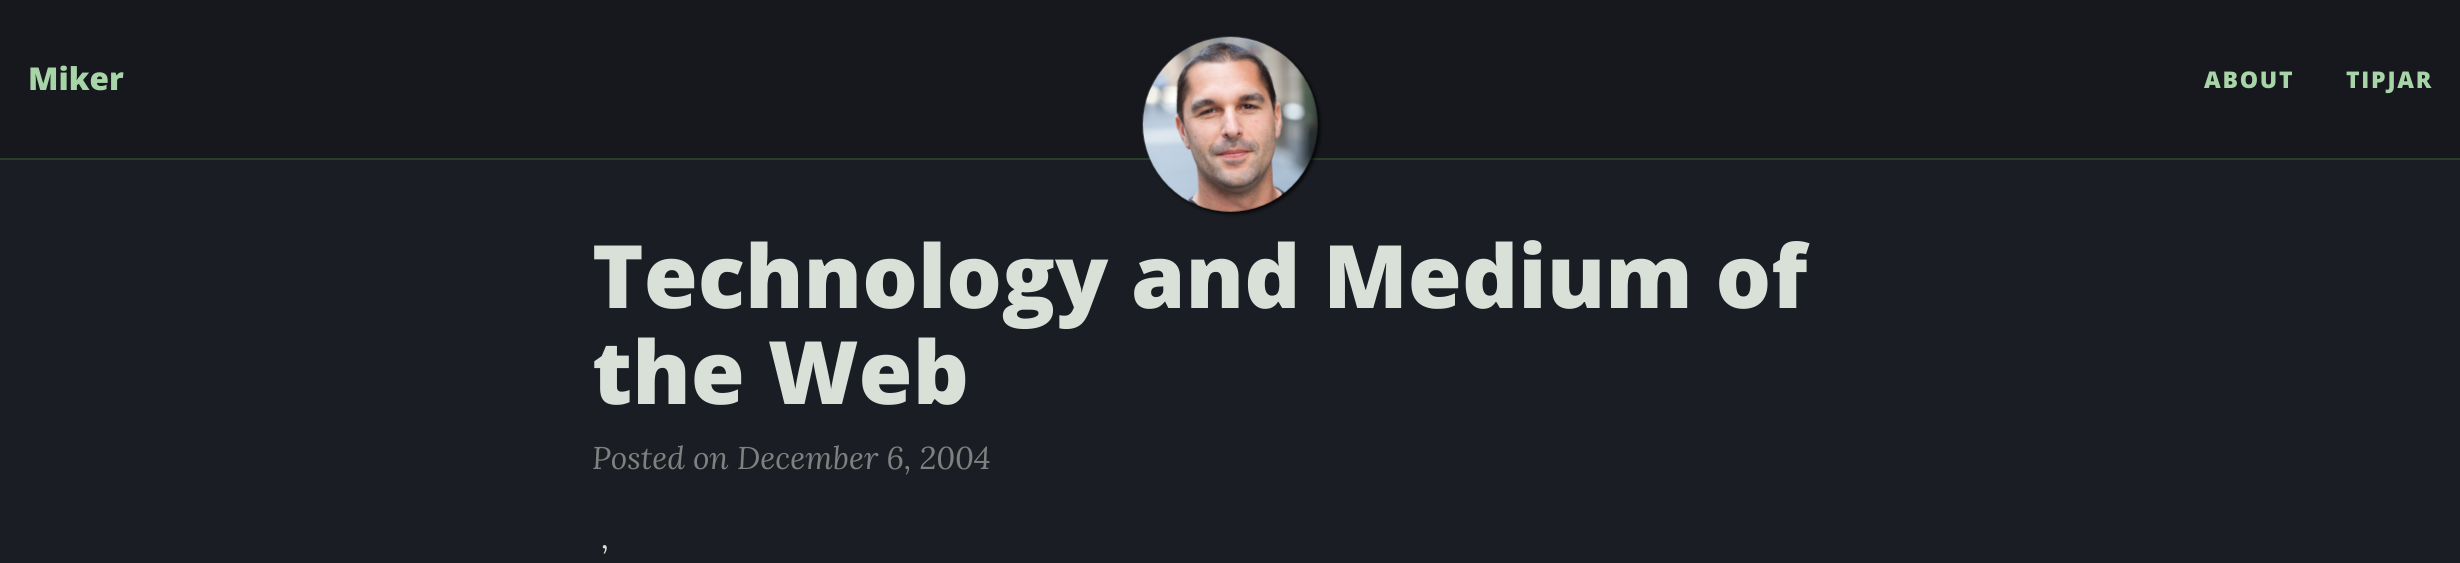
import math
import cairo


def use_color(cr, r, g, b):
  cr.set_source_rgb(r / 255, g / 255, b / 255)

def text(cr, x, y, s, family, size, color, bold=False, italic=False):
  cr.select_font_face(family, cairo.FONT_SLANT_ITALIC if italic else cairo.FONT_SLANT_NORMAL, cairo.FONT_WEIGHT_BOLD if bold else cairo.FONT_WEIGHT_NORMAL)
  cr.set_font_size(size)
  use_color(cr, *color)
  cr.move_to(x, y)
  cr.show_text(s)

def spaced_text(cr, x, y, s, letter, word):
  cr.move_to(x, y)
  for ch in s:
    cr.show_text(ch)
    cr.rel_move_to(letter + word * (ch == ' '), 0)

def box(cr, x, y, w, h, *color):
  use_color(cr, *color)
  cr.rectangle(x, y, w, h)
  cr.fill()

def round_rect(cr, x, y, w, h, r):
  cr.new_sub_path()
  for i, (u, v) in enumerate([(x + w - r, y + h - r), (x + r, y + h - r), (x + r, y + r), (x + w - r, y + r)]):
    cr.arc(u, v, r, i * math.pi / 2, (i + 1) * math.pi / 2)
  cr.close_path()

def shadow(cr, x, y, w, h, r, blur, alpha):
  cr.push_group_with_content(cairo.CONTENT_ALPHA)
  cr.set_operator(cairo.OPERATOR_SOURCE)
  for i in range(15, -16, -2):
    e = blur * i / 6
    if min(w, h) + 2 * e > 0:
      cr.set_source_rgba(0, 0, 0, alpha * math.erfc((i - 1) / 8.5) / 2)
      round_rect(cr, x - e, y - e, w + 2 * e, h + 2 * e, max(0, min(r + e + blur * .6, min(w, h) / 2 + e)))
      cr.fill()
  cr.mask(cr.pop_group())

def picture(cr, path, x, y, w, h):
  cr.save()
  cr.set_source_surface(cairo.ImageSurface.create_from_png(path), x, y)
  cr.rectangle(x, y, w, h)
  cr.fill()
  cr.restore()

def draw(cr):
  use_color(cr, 26, 29, 35)
  cr.paint()
  box(cr, 0, 0, 2460, 158, 22, 24, 29)
  box(cr, 0, 158, 2460, 2, 42, 63, 42)
  use_color(cr, 0, 0, 0)
  shadow(cr, 1145, 39, 175, 175, 87.5, 2, 0.8)
  picture(cr, "img_01.png", 1142, 36, 176, 176)
  text(cr, 28, 90, "Miker", "Open Sans ExtraBold", 31.5, (168, 213, 168))
  cr.set_font_size(23)
  spaced_text(cr, 2204, 88, "ABOUT", 1.75, 0)
  spaced_text(cr, 2346, 88, "TIPJAR", 1.75, 0)
  text(cr, 592, 308, "Technology and Medium of", "Open Sans ExtraBold", 87.5, (216, 224, 216))
  text(cr, 592, 404, "the Web", "Open Sans ExtraBold", 87.5, (216, 224, 216))
  text(cr, 592, 469, "Posted on December 6, 2004", "Lora", 31.5, (128, 128, 128), italic=True)
  text(cr, 602, 569, "’", "Lora", 31.5, (216, 224, 216))


surface = cairo.ImageSurface(cairo.FORMAT_RGB24, 2460, 563)
cr = cairo.Context(surface)
options = cairo.FontOptions()
options.set_hint_metrics(cairo.HINT_METRICS_OFF)
options.set_hint_style(cairo.HINT_STYLE_NONE)
cr.set_font_options(options)
cr.set_miter_limit(4)
draw(cr)
surface.write_to_png("out.png")
